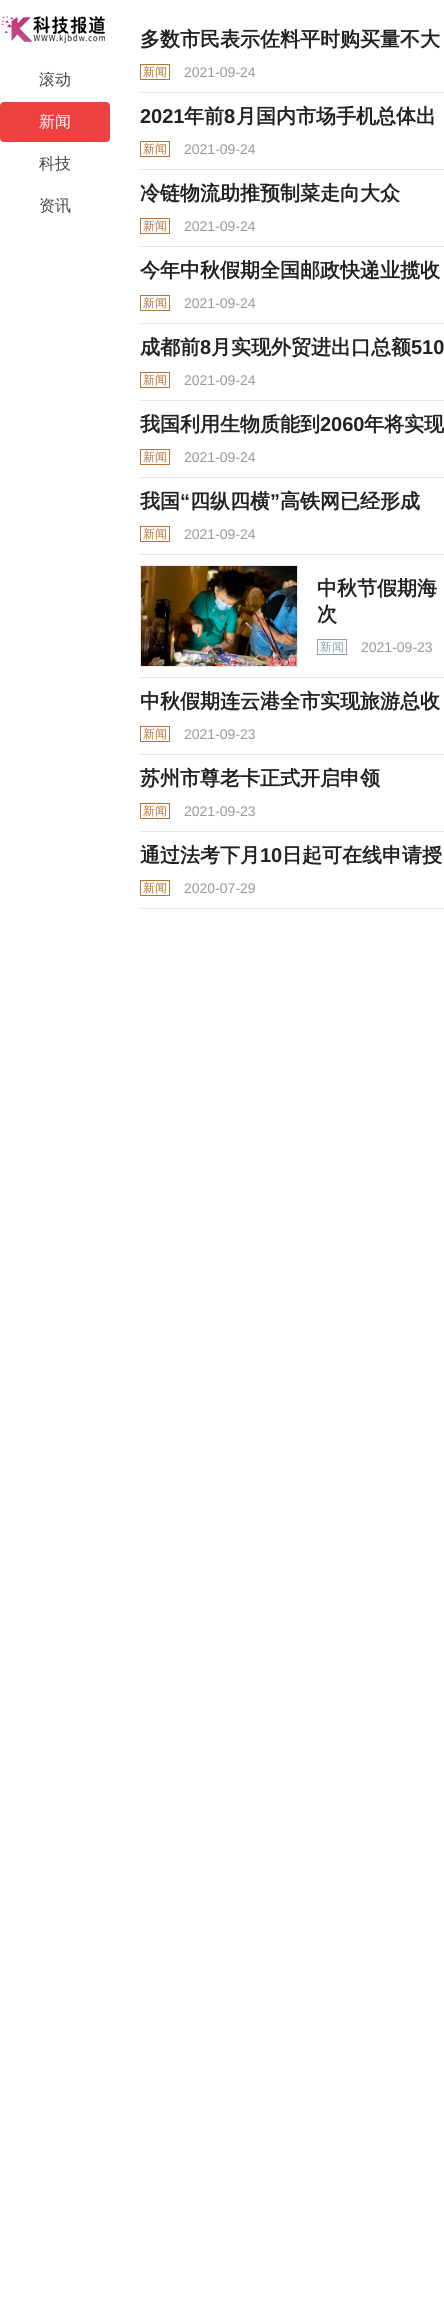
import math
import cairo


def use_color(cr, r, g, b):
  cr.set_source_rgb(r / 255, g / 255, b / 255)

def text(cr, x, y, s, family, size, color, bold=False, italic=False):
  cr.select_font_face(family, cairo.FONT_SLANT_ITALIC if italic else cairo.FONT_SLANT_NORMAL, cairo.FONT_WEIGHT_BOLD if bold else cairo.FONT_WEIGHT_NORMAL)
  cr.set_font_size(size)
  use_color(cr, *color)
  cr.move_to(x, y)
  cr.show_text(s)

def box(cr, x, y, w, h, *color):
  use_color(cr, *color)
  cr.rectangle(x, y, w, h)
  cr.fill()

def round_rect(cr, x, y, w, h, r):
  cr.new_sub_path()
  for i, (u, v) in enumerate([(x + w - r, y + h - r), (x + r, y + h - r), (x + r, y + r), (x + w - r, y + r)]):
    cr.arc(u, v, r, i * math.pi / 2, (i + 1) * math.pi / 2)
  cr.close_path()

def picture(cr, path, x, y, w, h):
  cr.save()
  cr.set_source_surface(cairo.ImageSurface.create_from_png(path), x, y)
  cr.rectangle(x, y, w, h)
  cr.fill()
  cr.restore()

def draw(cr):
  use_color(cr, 255, 255, 255)
  cr.paint()
  picture(cr, "img_01.png", 1, 16, 104, 27)
  use_color(cr, 237, 64, 64)
  round_rect(cr, 0, 102, 110, 40, 4)
  cr.fill()
  box(cr, 140, 92, 304, 1, 232, 232, 232)
  cr.rectangle(140.5, 64.5, 29, 15)
  use_color(cr, 181, 116, 58)
  cr.set_line_width(1)
  cr.stroke()
  box(cr, 140, 169, 304, 1, 232, 232, 232)
  cr.rectangle(140.5, 141.5, 29, 15)
  use_color(cr, 181, 116, 58)
  cr.stroke()
  box(cr, 140, 246, 304, 1, 232, 232, 232)
  cr.rectangle(140.5, 218.5, 29, 15)
  use_color(cr, 181, 116, 58)
  cr.stroke()
  box(cr, 140, 323, 304, 1, 232, 232, 232)
  cr.rectangle(140.5, 295.5, 29, 15)
  use_color(cr, 181, 116, 58)
  cr.stroke()
  box(cr, 140, 400, 304, 1, 232, 232, 232)
  cr.rectangle(140.5, 372.5, 29, 15)
  use_color(cr, 181, 116, 58)
  cr.stroke()
  box(cr, 140, 477, 304, 1, 232, 232, 232)
  cr.rectangle(140.5, 449.5, 29, 15)
  use_color(cr, 181, 116, 58)
  cr.stroke()
  box(cr, 140, 554, 304, 1, 232, 232, 232)
  cr.rectangle(140.5, 526.5, 29, 15)
  use_color(cr, 181, 116, 58)
  cr.stroke()
  box(cr, 140, 677, 304, 1, 232, 232, 232)
  box(cr, 140, 565, 158, 102, 232, 232, 232)
  picture(cr, "img_02.png", 141, 566, 156, 100)
  cr.rectangle(317.5, 639.5, 29, 15)
  use_color(cr, 135, 165, 181)
  cr.stroke()
  box(cr, 140, 754, 304, 1, 232, 232, 232)
  cr.rectangle(140.5, 726.5, 29, 15)
  use_color(cr, 181, 116, 58)
  cr.stroke()
  box(cr, 140, 831, 304, 1, 232, 232, 232)
  cr.rectangle(140.5, 803.5, 29, 15)
  use_color(cr, 181, 116, 58)
  cr.stroke()
  box(cr, 140, 908, 304, 1, 232, 232, 232)
  cr.rectangle(140.5, 880.5, 29, 15)
  use_color(cr, 181, 116, 58)
  cr.stroke()
  text(cr, 39, 85, "滚动", "WenQuanYi Zen Hei Medium", 16, (68, 68, 68))
  text(cr, 39, 127, "新闻", "WenQuanYi Zen Hei Medium", 16, (255, 255, 255))
  text(cr, 39, 169, "科技", "WenQuanYi Zen Hei Medium", 16, (68, 68, 68))
  text(cr, 39, 211, "资讯", "WenQuanYi Zen Hei Medium", 16, (68, 68, 68))
  text(cr, 140, 46, "多数市民表示佐料平时购买量不大", "WenQuanYi Zen Hei", 20, (34, 34, 34), bold=True)
  text(cr, 143, 76, "新闻", "WenQuanYi Zen Hei Medium", 12, (181, 116, 58))
  text(cr, 184, 77, "2021-09-24", "Liberation Sans", 14, (153, 153, 153))
  text(cr, 140, 123, "2021", "Liberation Sans", 20, (34, 34, 34), bold=True)
  text(cr, 184, 123, "年前", "WenQuanYi Zen Hei", 20, (34, 34, 34), bold=True)
  text(cr, 224, 123, "8", "Liberation Sans", 20, (34, 34, 34), bold=True)
  text(cr, 236, 123, "月国内市场手机总体出", "WenQuanYi Zen Hei", 20, (34, 34, 34), bold=True)
  text(cr, 143, 153, "新闻", "WenQuanYi Zen Hei Medium", 12, (181, 116, 58))
  text(cr, 184, 154, "2021-09-24", "Liberation Sans", 14, (153, 153, 153))
  text(cr, 140, 200, "冷链物流助推预制菜走向大众", "WenQuanYi Zen Hei", 20, (34, 34, 34), bold=True)
  text(cr, 143, 230, "新闻", "WenQuanYi Zen Hei Medium", 12, (181, 116, 58))
  text(cr, 184, 231, "2021-09-24", "Liberation Sans", 14, (153, 153, 153))
  text(cr, 140, 277, "今年中秋假期全国邮政快递业揽收", "WenQuanYi Zen Hei", 20, (34, 34, 34), bold=True)
  text(cr, 143, 307, "新闻", "WenQuanYi Zen Hei Medium", 12, (181, 116, 58))
  text(cr, 184, 308, "2021-09-24", "Liberation Sans", 14, (153, 153, 153))
  text(cr, 140, 354, "成都前", "WenQuanYi Zen Hei", 20, (34, 34, 34), bold=True)
  text(cr, 200, 354, "8", "Liberation Sans", 20, (34, 34, 34), bold=True)
  text(cr, 211, 354, "月实现外贸进出口总额", "WenQuanYi Zen Hei", 20, (34, 34, 34), bold=True)
  text(cr, 411, 354, "510", "Liberation Sans", 20, (34, 34, 34), bold=True)
  text(cr, 143, 384, "新闻", "WenQuanYi Zen Hei Medium", 12, (181, 116, 58))
  text(cr, 184, 385, "2021-09-24", "Liberation Sans", 14, (153, 153, 153))
  text(cr, 140, 431, "我国利用生物质能到", "WenQuanYi Zen Hei", 20, (34, 34, 34), bold=True)
  text(cr, 320, 431, "2060", "Liberation Sans", 20, (34, 34, 34), bold=True)
  text(cr, 364, 431, "年将实现", "WenQuanYi Zen Hei", 20, (34, 34, 34), bold=True)
  text(cr, 143, 461, "新闻", "WenQuanYi Zen Hei Medium", 12, (181, 116, 58))
  text(cr, 184, 462, "2021-09-24", "Liberation Sans", 14, (153, 153, 153))
  text(cr, 140, 508, "我国", "WenQuanYi Zen Hei", 20, (34, 34, 34), bold=True)
  text(cr, 180, 508, "“", "Liberation Sans", 20, (34, 34, 34), bold=True)
  text(cr, 190, 508, "四纵四横", "WenQuanYi Zen Hei", 20, (34, 34, 34), bold=True)
  text(cr, 270, 508, "”", "Liberation Sans", 20, (34, 34, 34), bold=True)
  text(cr, 280, 508, "高铁网已经形成", "WenQuanYi Zen Hei", 20, (34, 34, 34), bold=True)
  text(cr, 143, 538, "新闻", "WenQuanYi Zen Hei Medium", 12, (181, 116, 58))
  text(cr, 184, 539, "2021-09-24", "Liberation Sans", 14, (153, 153, 153))
  text(cr, 317, 595, "中秋节假期海", "WenQuanYi Zen Hei", 20, (34, 34, 34), bold=True)
  text(cr, 317, 621, "次", "WenQuanYi Zen Hei", 20, (34, 34, 34), bold=True)
  text(cr, 320, 651, "新闻", "WenQuanYi Zen Hei Medium", 12, (135, 165, 181))
  text(cr, 361, 652, "2021-09-23", "Liberation Sans", 14, (153, 153, 153))
  text(cr, 140, 708, "中秋假期连云港全市实现旅游总收", "WenQuanYi Zen Hei", 20, (34, 34, 34), bold=True)
  text(cr, 143, 738, "新闻", "WenQuanYi Zen Hei Medium", 12, (181, 116, 58))
  text(cr, 184, 739, "2021-09-23", "Liberation Sans", 14, (153, 153, 153))
  text(cr, 140, 785, "苏州市尊老卡正式开启申领", "WenQuanYi Zen Hei", 20, (34, 34, 34), bold=True)
  text(cr, 143, 815, "新闻", "WenQuanYi Zen Hei Medium", 12, (181, 116, 58))
  text(cr, 184, 816, "2021-09-23", "Liberation Sans", 14, (153, 153, 153))
  text(cr, 140, 862, "通过法考下月", "WenQuanYi Zen Hei", 20, (34, 34, 34), bold=True)
  text(cr, 260, 862, "10", "Liberation Sans", 20, (34, 34, 34), bold=True)
  text(cr, 282, 862, "日起可在线申请授", "WenQuanYi Zen Hei", 20, (34, 34, 34), bold=True)
  text(cr, 143, 892, "新闻", "WenQuanYi Zen Hei Medium", 12, (181, 116, 58))
  text(cr, 184, 893, "2020-07-29", "Liberation Sans", 14, (153, 153, 153))


surface = cairo.ImageSurface(cairo.FORMAT_RGB24, 444, 2313)
cr = cairo.Context(surface)
options = cairo.FontOptions()
options.set_hint_metrics(cairo.HINT_METRICS_OFF)
options.set_hint_style(cairo.HINT_STYLE_NONE)
cr.set_font_options(options)
cr.set_miter_limit(4)
draw(cr)
surface.write_to_png("out.png")
